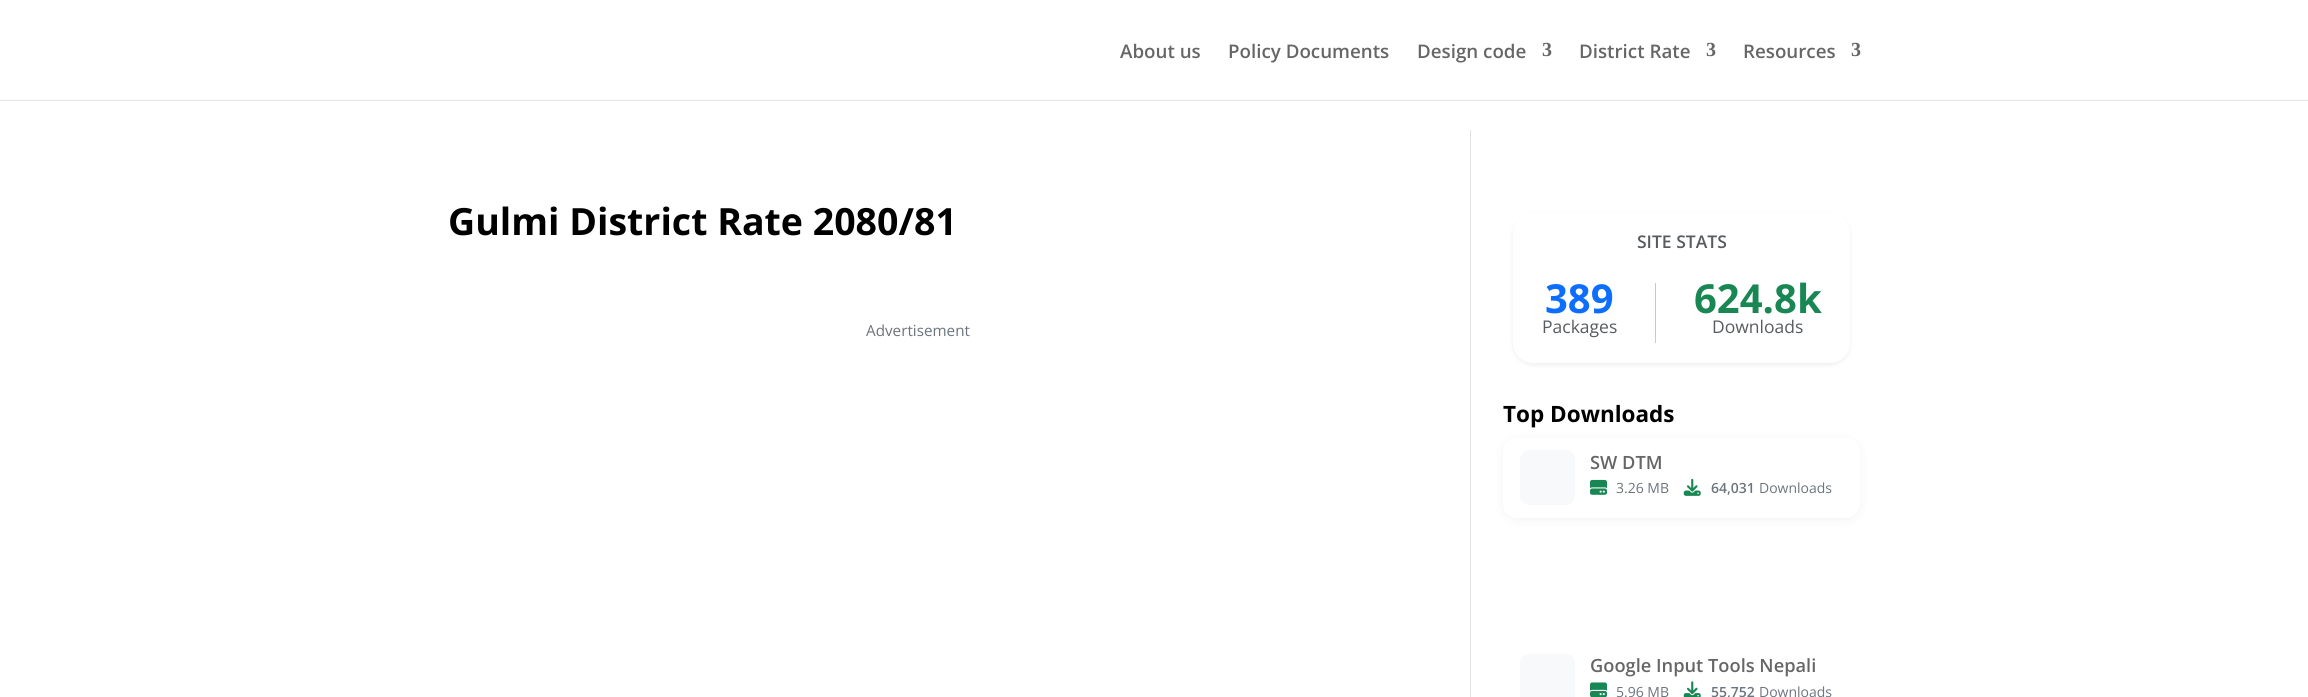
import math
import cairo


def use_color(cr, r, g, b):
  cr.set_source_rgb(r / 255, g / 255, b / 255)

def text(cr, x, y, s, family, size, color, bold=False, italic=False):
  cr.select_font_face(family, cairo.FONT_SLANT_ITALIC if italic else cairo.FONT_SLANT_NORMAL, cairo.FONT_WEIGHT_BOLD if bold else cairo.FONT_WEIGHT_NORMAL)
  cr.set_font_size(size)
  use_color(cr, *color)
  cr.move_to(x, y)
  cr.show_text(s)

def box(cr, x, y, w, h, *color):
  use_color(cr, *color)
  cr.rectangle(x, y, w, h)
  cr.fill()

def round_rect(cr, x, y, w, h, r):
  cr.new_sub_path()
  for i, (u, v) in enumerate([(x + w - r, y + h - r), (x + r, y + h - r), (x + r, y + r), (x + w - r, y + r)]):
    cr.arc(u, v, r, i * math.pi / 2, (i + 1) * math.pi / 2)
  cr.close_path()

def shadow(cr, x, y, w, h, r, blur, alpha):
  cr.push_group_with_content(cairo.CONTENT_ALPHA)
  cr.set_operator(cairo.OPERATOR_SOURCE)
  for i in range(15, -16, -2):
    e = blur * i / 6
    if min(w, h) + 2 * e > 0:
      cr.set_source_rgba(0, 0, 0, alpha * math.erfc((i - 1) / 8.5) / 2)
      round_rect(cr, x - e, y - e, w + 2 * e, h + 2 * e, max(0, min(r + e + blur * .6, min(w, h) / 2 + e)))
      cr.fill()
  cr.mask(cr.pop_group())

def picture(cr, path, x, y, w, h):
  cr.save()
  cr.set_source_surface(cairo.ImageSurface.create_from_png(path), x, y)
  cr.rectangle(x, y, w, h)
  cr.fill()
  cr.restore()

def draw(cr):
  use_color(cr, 255, 255, 255)
  cr.paint()
  use_color(cr, 230, 230, 230)
  cr.new_path()
  cr.move_to(0, 100)
  cr.line_to(0, 101)
  cr.line_to(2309, 101)
  cr.line_to(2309, 1)
  cr.line_to(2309, 100)
  cr.close_path()
  cr.fill()
  box(cr, 1470, 130, 1, 567, 226, 226, 226)
  use_color(cr, 0, 0, 0)
  shadow(cr, 1513, 215, 337, 150, 20, 2.5, 0.07)
  use_color(cr, 255, 255, 255)
  round_rect(cr, 1513, 213, 337, 150, 20)
  cr.fill()
  box(cr, 1655, 283, 1, 60, 200, 201, 202)
  use_color(cr, 0, 0, 0)
  shadow(cr, 1503, 440, 357, 80, 14, 5, 0.05)
  use_color(cr, 255, 255, 255)
  round_rect(cr, 1503, 438, 357, 80, 14)
  cr.fill()
  use_color(cr, 248, 249, 250)
  round_rect(cr, 1520, 450, 55, 55, 9)
  cr.fill()
  picture(cr, "img_01.png", 1590, 479, 17, 16)
  picture(cr, "img_02.png", 1683, 478, 18, 18)
  round_rect(cr, 1520, 654, 55, 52, 9)
  cr.fill()
  picture(cr, "img_03.png", 1590, 682, 17, 15)
  picture(cr, "img_04.png", 1683, 681, 18, 16)
  text(cr, 1120, 58, "About us", "Open Sans SemiBold", 18.75, (102, 102, 102))
  text(cr, 1228, 58, "Policy Documents", "Open Sans SemiBold", 18.75, (102, 102, 102))
  text(cr, 1417, 58, "Design code", "Open Sans SemiBold", 18.75, (102, 102, 102))
  text(cr, 1542, 56, "3", "Liberation Serif", 20, (102, 102, 102), bold=True)
  text(cr, 1579, 58, "District Rate", "Open Sans SemiBold", 18.75, (102, 102, 102))
  text(cr, 1706, 56, "3", "Liberation Serif", 20, (102, 102, 102), bold=True)
  text(cr, 1743, 58, "Resources", "Open Sans SemiBold", 18.75, (102, 102, 102))
  text(cr, 1851, 56, "3", "Liberation Serif", 20, (102, 102, 102), bold=True)
  text(cr, 448, 235, "Gulmi District Rate 2080/81", "Open Sans", 37.5, (0, 0, 0), bold=True)
  text(cr, 866, 336, "Advertisement", "Open Sans", 15.25, (108, 117, 125))
  text(cr, 1637, 248, "SITE STATS", "Open Sans SemiBold", 17.5, (89, 92, 95))
  text(cr, 1545, 313, "389", "Open Sans", 40, (13, 110, 253), bold=True)
  text(cr, 1542, 333, "Packages", "Open Sans", 17.5, (89, 92, 95))
  text(cr, 1694, 313, "624.8k", "Open Sans", 40, (25, 135, 84), bold=True)
  text(cr, 1712, 333, "Downloads", "Open Sans", 17.5, (89, 92, 95))
  text(cr, 1503, 422, "Top Downloads", "Open Sans", 22.5, (0, 0, 0), bold=True)
  text(cr, 1590, 469, "SW DTM", "Open Sans SemiBold", 18.25, (102, 102, 102))
  text(cr, 1616, 493, "3.26 MB", "Open Sans", 14, (108, 117, 125))
  text(cr, 1711, 493, "64,031", "Open Sans SemiBold", 14, (108, 117, 125))
  text(cr, 1759, 493, "Downloads", "Open Sans", 14, (108, 117, 125))
  text(cr, 1590, 672, "Google Input Tools Nepali", "Open Sans SemiBold", 18.25, (102, 102, 102))
  text(cr, 1616, 697, "5.96 MB", "Open Sans", 14, (108, 117, 125))
  text(cr, 1711, 697, "55,752", "Open Sans SemiBold", 14, (108, 117, 125))
  text(cr, 1759, 697, "Downloads", "Open Sans", 14, (108, 117, 125))


surface = cairo.ImageSurface(cairo.FORMAT_RGB24, 2308, 697)
cr = cairo.Context(surface)
options = cairo.FontOptions()
options.set_hint_metrics(cairo.HINT_METRICS_OFF)
options.set_hint_style(cairo.HINT_STYLE_NONE)
cr.set_font_options(options)
cr.set_miter_limit(4)
draw(cr)
surface.write_to_png("out.png")
